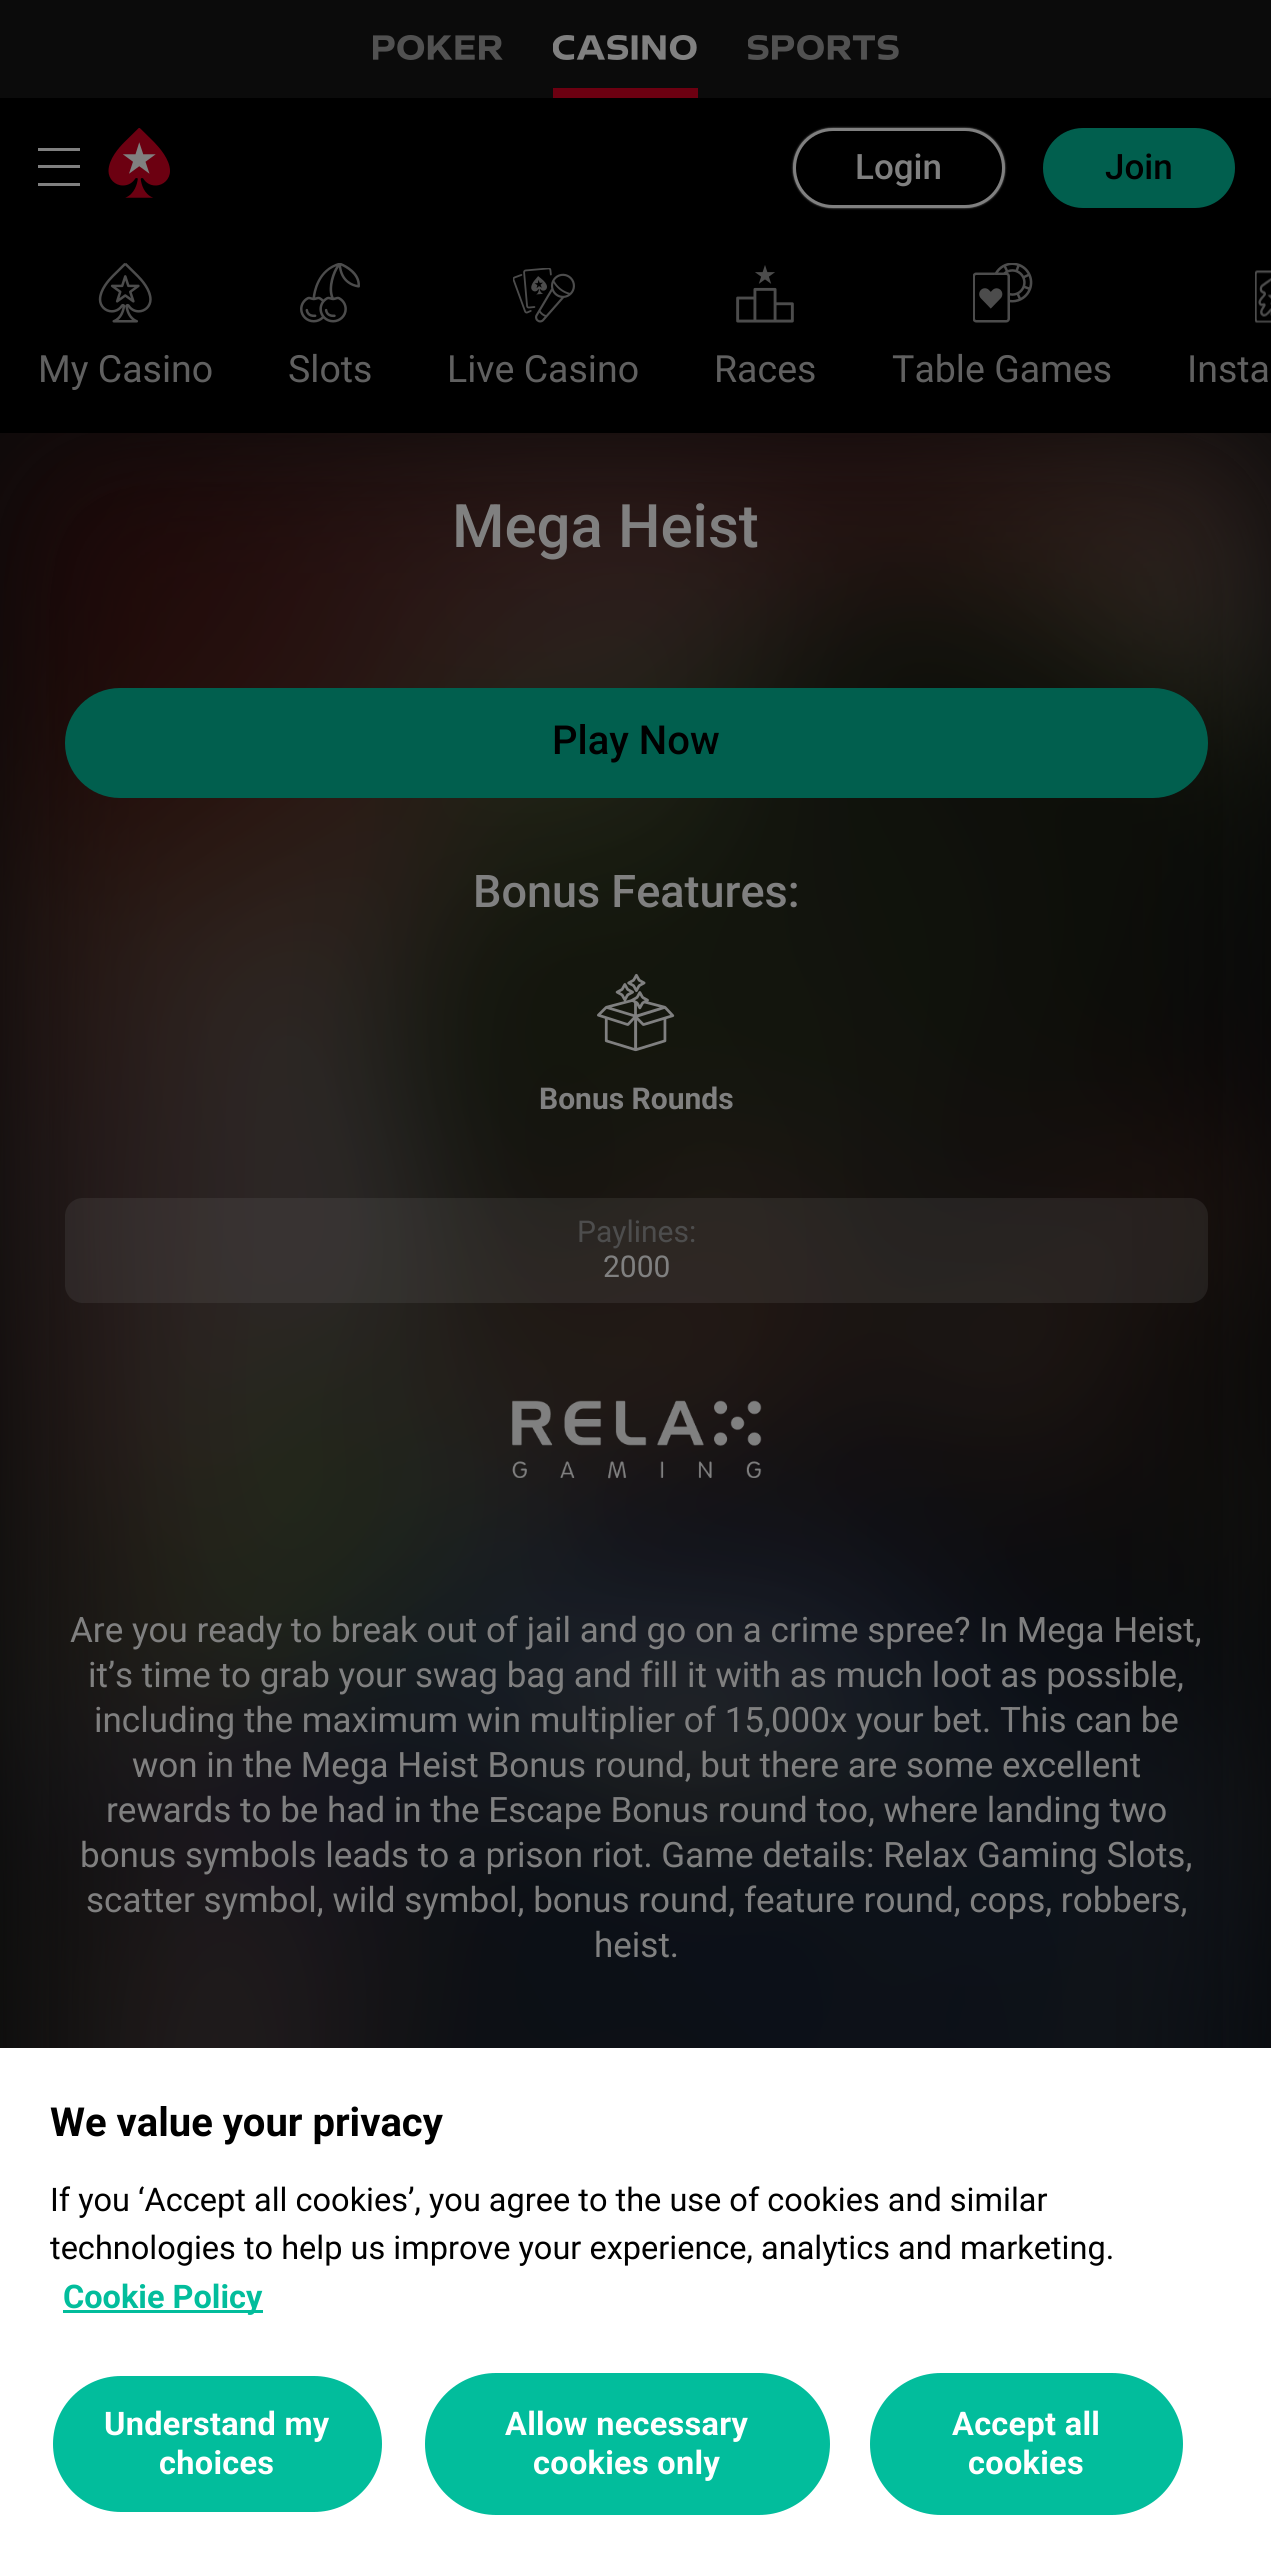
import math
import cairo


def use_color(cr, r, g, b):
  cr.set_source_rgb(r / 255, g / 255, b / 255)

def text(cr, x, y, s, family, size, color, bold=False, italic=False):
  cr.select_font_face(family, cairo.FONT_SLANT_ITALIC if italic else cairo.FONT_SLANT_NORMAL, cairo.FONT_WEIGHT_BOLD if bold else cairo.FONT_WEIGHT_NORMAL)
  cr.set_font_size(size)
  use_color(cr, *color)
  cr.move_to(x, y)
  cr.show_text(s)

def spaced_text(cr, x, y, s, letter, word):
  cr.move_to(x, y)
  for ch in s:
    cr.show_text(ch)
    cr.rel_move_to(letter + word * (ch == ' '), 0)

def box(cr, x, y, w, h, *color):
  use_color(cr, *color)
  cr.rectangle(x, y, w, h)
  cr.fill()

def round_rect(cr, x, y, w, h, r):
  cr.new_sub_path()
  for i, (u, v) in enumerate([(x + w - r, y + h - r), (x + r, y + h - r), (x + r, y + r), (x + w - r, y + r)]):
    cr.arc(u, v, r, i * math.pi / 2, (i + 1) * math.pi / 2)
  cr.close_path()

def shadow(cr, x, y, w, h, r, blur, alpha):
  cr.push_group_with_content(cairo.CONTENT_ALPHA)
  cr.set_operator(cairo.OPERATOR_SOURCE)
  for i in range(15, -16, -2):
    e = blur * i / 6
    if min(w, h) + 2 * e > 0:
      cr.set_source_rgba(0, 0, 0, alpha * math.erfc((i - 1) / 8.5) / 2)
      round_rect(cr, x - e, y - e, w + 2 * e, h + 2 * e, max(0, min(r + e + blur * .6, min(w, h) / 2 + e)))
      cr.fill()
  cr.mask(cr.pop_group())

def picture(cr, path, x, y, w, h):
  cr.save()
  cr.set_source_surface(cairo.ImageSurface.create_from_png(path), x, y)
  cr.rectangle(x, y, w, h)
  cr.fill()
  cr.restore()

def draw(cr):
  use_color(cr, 0, 0, 0)
  cr.paint()
  box(cr, 0, 0, 1271, 98, 11, 11, 11)
  picture(cr, "img_01.png", 373, 35, 130, 25)
  box(cr, 553, 88, 145, 10, 108, 0, 17)
  picture(cr, "img_02.png", 553, 35, 144, 25)
  picture(cr, "img_03.png", 748, 35, 151, 25)
  box(cr, 38, 148, 42, 3, 128, 128, 128)
  box(cr, 38, 165, 42, 3, 128, 128, 128)
  box(cr, 38, 183, 42, 3, 128, 128, 128)
  picture(cr, "img_04.png", 108, 128, 62, 70)
  use_color(cr, 128, 128, 128)
  shadow(cr, 793, 128, 212, 80, 40, 1, 1)
  use_color(cr, 0, 0, 0)
  round_rect(cr, 794.5, 129.5, 209, 77, 38.5)
  cr.fill_preserve()
  use_color(cr, 128, 128, 128)
  cr.set_line_width(3)
  cr.stroke()
  use_color(cr, 1, 95, 78)
  round_rect(cr, 1043, 128, 192, 80, 40)
  cr.fill()
  picture(cr, "img_05.png", 98, 263, 54, 60)
  picture(cr, "img_06.png", 300, 263, 60, 60)
  picture(cr, "img_07.png", 513, 268, 62, 55)
  picture(cr, "img_08.png", 736, 265, 58, 58)
  picture(cr, "img_09.png", 973, 263, 60, 60)
  picture(cr, "img_10.png", 1255, 270, 16, 54)
  box(cr, 0, 433, 1271, 1615, 11, 11, 11)
  picture(cr, "img_11.png", 0, 433, 1271, 1615)
  use_color(cr, 1, 95, 78)
  round_rect(cr, 65, 688, 1143, 110, 55)
  cr.fill()
  picture(cr, "img_12.png", 597, 973, 78, 79)
  cr.set_source_rgba(0.502, 0.502, 0.502, 0.15)
  round_rect(cr, 65, 1198, 1143, 105, 18)
  cr.fill()
  picture(cr, "img_13.png", 512, 1400, 250, 79)
  box(cr, 0, 2048, 1271, 516, 255, 255, 255)
  box(cr, 63, 2310, 200, 3, 2, 189, 156)
  round_rect(cr, 51.5, 2374.5, 332, 139, 69.5)
  cr.fill_preserve()
  use_color(cr, 255, 255, 255)
  cr.stroke()
  use_color(cr, 2, 189, 156)
  round_rect(cr, 426.5, 2374.5, 402, 139, 69.5)
  cr.fill_preserve()
  cr.stroke()
  round_rect(cr, 871.5, 2374.5, 310, 139, 69.5)
  cr.fill_preserve()
  cr.stroke()
  text(cr, 855, 179, "Login", "Roboto Medium", 35, (128, 128, 128))
  text(cr, 1105, 179, "Join", "Roboto Medium", 35, (0, 0, 0))
  text(cr, 38, 382, "My Casino", "Roboto", 37.5, (96, 96, 96))
  text(cr, 288, 382, "Slots", "Roboto", 37.5, (96, 96, 96))
  text(cr, 447, 382, "Live Casino", "Roboto", 37.5, (96, 96, 96))
  text(cr, 714, 382, "Races", "Roboto", 37.5, (96, 96, 96))
  text(cr, 892, 382, "Table Games", "Roboto", 37.5, (96, 96, 96))
  text(cr, 1187, 382, "Insta", "Roboto", 37.5, (96, 96, 96))
  text(cr, 452, 547, "Mega Heist", "Roboto Medium", 60, (128, 128, 128))
  text(cr, 552, 754, "Play Now", "Roboto Medium", 40, (0, 0, 0))
  text(cr, 473, 907, "Bonus Features:", "Roboto Medium", 45, (128, 128, 128))
  text(cr, 539, 1109, "Bonus Rounds", "Roboto", 30, (128, 128, 128), bold=True)
  text(cr, 577, 1242, "Paylines:", "Roboto", 30, (77, 77, 77))
  text(cr, 603, 1277, "2000", "Roboto", 30, (128, 128, 128))
  text(cr, 70, 1642, "Are you ready to break out of jail and go on a crime spree? In Mega Heist,", "Roboto", 35, (128, 128, 128))
  text(cr, 88, 1687, "it’s time to grab your swag bag and fill it with as much loot as possible,", "Roboto", 35, (128, 128, 128))
  text(cr, 94, 1732, "including the maximum win multiplier of 15,000x your bet. This can be", "Roboto", 35, (128, 128, 128))
  text(cr, 132, 1777, "won in the Mega Heist Bonus round, but there are some excellent", "Roboto", 35, (128, 128, 128))
  text(cr, 106, 1822, "rewards to be had in the Escape Bonus round too, where landing two", "Roboto", 35, (128, 128, 128))
  text(cr, 80, 1867, "bonus symbols leads to a prison riot. Game details: Relax Gaming Slots,", "Roboto", 35, (128, 128, 128))
  text(cr, 86, 1912, "scatter symbol, wild symbol, bonus round, feature round, cops, robbers,", "Roboto", 35, (128, 128, 128))
  text(cr, 594, 1957, "heist.", "Roboto", 35, (128, 128, 128))
  text(cr, 50, 2136, "We value your privacy", "Roboto", 40, (0, 0, 0), bold=True)
  text(cr, 50, 2211, "If you ‘Accept all cookies’, you agree to the use of cookies and similar", "Roboto", 32.5, (0, 0, 0))
  text(cr, 50, 2259, "technologies to help us improve your experience, analytics and marketing.", "Roboto", 32.5, (0, 0, 0))
  text(cr, 63, 2308, "Cookie Policy", "Roboto", 32.5, (2, 189, 156), bold=True)
  use_color(cr, 255, 255, 255)
  spaced_text(cr, 104, 2435, "Understand my", 0.3, 0)
  spaced_text(cr, 159, 2474, "choices", 0.3, 0)
  spaced_text(cr, 505, 2435, "Allow necessary", 0.3, 0)
  spaced_text(cr, 533, 2474, "cookies only", 0.3, 0)
  spaced_text(cr, 952, 2435, "Accept all", 0.3, 0)
  spaced_text(cr, 968, 2474, "cookies", 0.3, 0)


surface = cairo.ImageSurface(cairo.FORMAT_RGB24, 1271, 2564)
cr = cairo.Context(surface)
options = cairo.FontOptions()
options.set_hint_metrics(cairo.HINT_METRICS_OFF)
options.set_hint_style(cairo.HINT_STYLE_NONE)
cr.set_font_options(options)
cr.set_miter_limit(4)
draw(cr)
surface.write_to_png("out.png")
